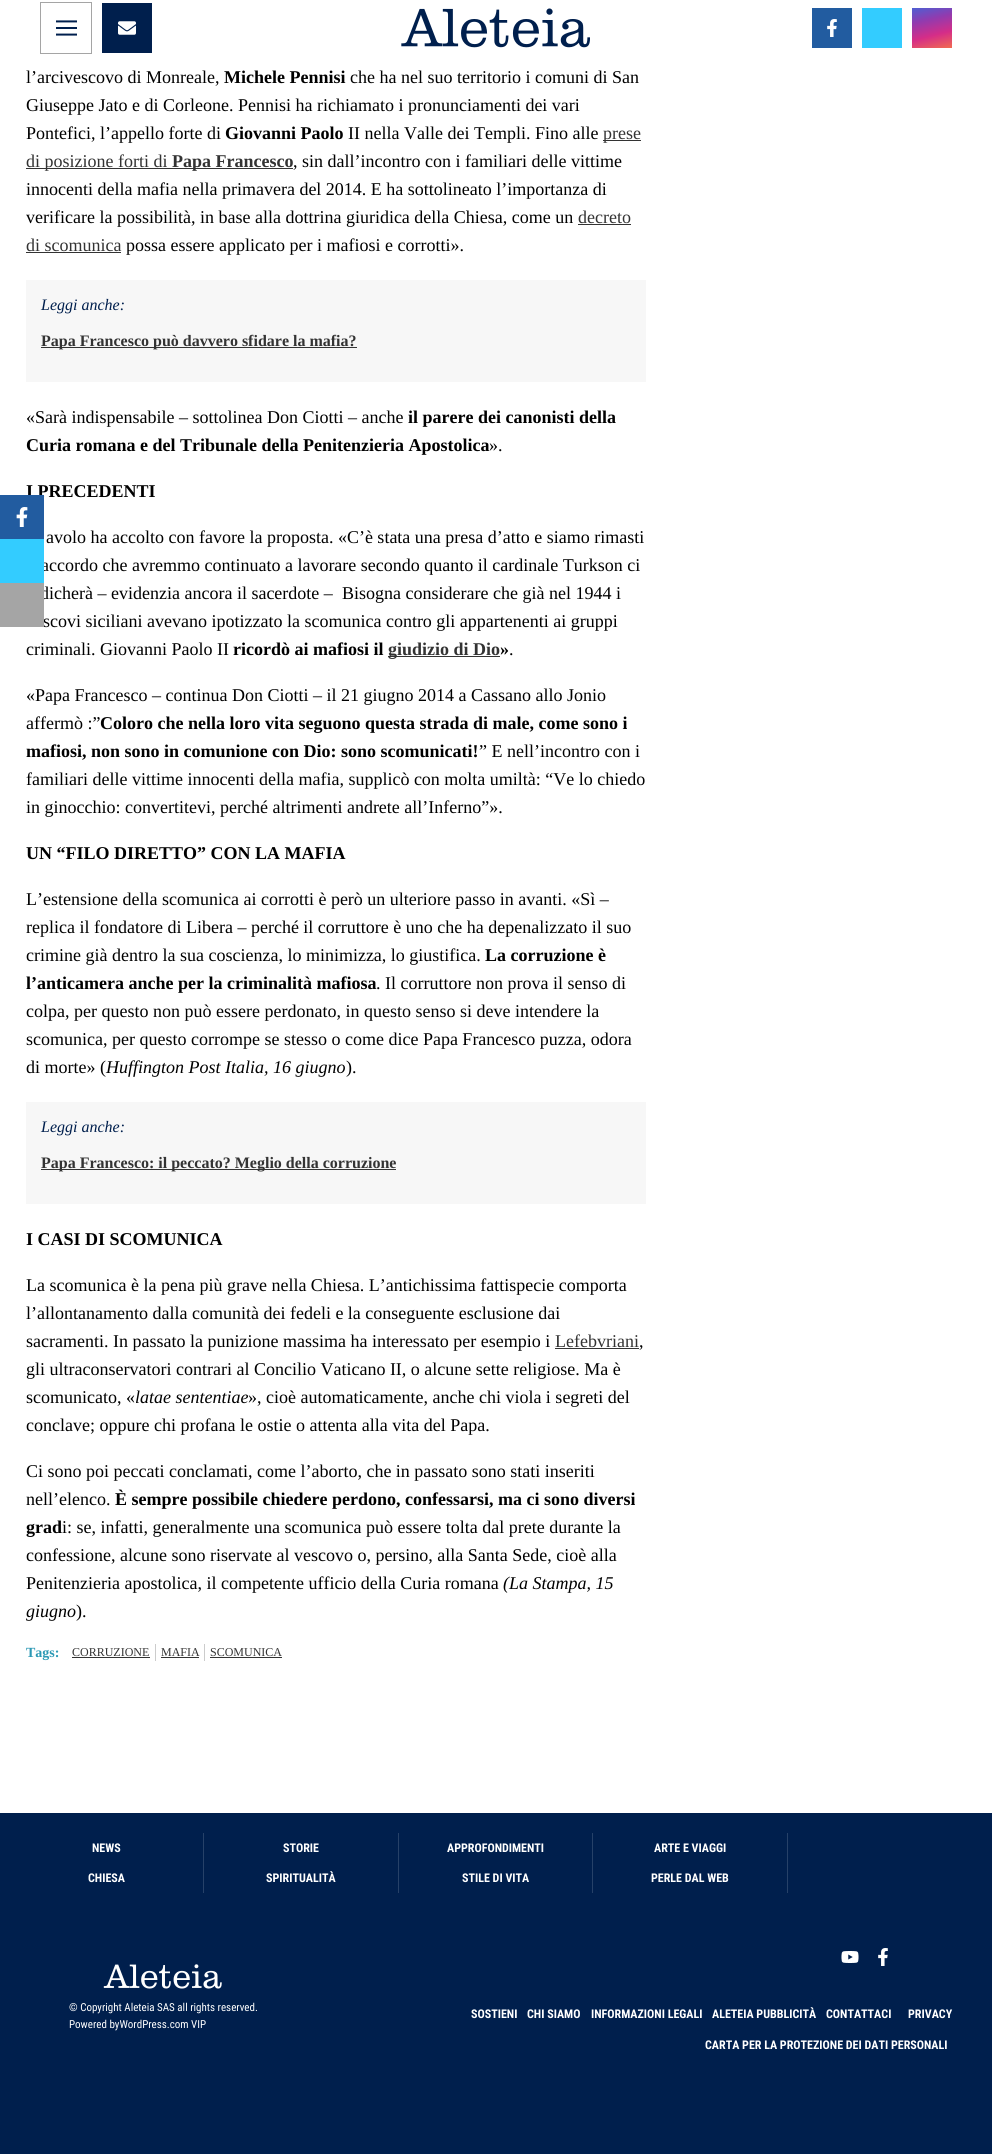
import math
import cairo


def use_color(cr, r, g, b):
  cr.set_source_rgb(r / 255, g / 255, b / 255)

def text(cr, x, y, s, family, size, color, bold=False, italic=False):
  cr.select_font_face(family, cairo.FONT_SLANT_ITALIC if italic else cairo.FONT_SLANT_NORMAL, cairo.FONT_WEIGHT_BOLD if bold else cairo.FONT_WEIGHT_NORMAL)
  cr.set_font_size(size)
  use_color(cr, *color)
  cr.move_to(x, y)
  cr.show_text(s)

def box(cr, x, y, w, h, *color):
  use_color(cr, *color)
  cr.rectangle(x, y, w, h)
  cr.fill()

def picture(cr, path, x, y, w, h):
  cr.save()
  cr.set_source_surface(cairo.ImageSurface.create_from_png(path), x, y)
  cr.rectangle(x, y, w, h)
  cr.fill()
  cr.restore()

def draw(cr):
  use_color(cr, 255, 255, 255)
  cr.paint()
  cr.rectangle(40.5, 2.5, 51, 51)
  use_color(cr, 165, 165, 165)
  cr.set_line_width(1)
  cr.stroke()
  picture(cr, "img_01.png", 56, 20, 21, 16)
  box(cr, 102, 3, 50, 50, 0, 31, 77)
  picture(cr, "img_02.png", 118, 21, 18, 14)
  picture(cr, "img_03.png", 401, 8, 189, 40)
  box(cr, 812, 8, 40, 40, 34, 92, 160)
  picture(cr, "img_04.png", 827, 19, 10, 18)
  box(cr, 862, 8, 40, 40, 51, 204, 255)
  gradient = cairo.LinearGradient(926, 4.5, 938, 52)
  gradient.add_color_stop_rgba(0, 0.306, 0.373, 0.827, 1)
  gradient.add_color_stop_rgba(0.31, 0.569, 0.231, 0.686, 1)
  gradient.add_color_stop_rgba(0.65, 0.835, 0.176, 0.533, 1)
  gradient.add_color_stop_rgba(1, 0.949, 0.427, 0.31, 1)
  cr.set_source(gradient)
  cr.rectangle(912, 8, 40, 40)
  cr.fill()
  box(cr, 603, 140, 38, 1, 51, 51, 51)
  box(cr, 26, 168, 267, 1, 51, 51, 51)
  box(cr, 578, 224, 53, 1, 51, 51, 51)
  box(cr, 26, 252, 95, 1, 51, 51, 51)
  box(cr, 26, 280, 620, 102, 247, 247, 247)
  box(cr, 41, 347, 316, 1, 51, 51, 51)
  box(cr, 388, 656, 112, 1, 51, 51, 51)
  box(cr, 26, 1102, 620, 102, 247, 247, 247)
  box(cr, 41, 1169, 355, 1, 51, 51, 51)
  box(cr, 555, 1348, 84, 1, 51, 51, 51)
  box(cr, 155, 1644, 1, 17, 204, 204, 204)
  box(cr, 72, 1657, 78, 1, 51, 51, 51)
  box(cr, 204, 1644, 1, 17, 204, 204, 204)
  box(cr, 161, 1657, 38, 1, 51, 51, 51)
  box(cr, 210, 1657, 72, 1, 51, 51, 51)
  box(cr, 0, 1813, 992, 341, 0, 31, 77)
  box(cr, 203, 1833, 1, 60, 38, 65, 104)
  box(cr, 398, 1833, 1, 60, 38, 65, 104)
  box(cr, 592, 1833, 1, 60, 38, 65, 104)
  box(cr, 787, 1833, 1, 60, 38, 65, 104)
  picture(cr, "img_06.png", 103, 1964, 119, 25)
  picture(cr, "img_07.png", 841, 1951, 18, 12)
  picture(cr, "img_08.png", 878, 1948, 10, 18)
  text(cr, 26, 83, "l’arcivescovo di Monreale,", "Liberation Serif", 18, (0, 0, 0))
  text(cr, 224, 83, "Michele Pennisi", "Liberation Serif", 18, (0, 0, 0), bold=True)
  text(cr, 350, 83, "che ha nel suo territorio i comuni di San", "Liberation Serif", 18, (0, 0, 0))
  text(cr, 26, 111, "Giuseppe Jato e di Corleone. Pennisi ha richiamato i pronunciamenti dei vari", "Liberation Serif", 18, (0, 0, 0))
  text(cr, 26, 139, "Pontefici, l’appello forte di", "Liberation Serif", 18, (0, 0, 0))
  text(cr, 225, 139, "Giovanni Paolo", "Liberation Serif", 18, (0, 0, 0), bold=True)
  text(cr, 348, 139, "II nella Valle dei Templi. Fino alle", "Liberation Serif", 18, (0, 0, 0))
  text(cr, 603, 139, "prese", "Liberation Serif", 18, (51, 51, 51))
  text(cr, 26, 167, "di posizione forti di", "Liberation Serif", 18, (51, 51, 51))
  text(cr, 172, 167, "Papa Francesco", "Liberation Serif", 18, (51, 51, 51), bold=True)
  text(cr, 293, 167, ", sin dall’incontro con i familiari delle vittime", "Liberation Serif", 18, (0, 0, 0))
  text(cr, 26, 195, "innocenti della mafia nella primavera del 2014. E ha sottolineato l’importanza di", "Liberation Serif", 18, (0, 0, 0))
  text(cr, 26, 223, "verificare la possibilità, in base alla dottrina giuridica della Chiesa, come un", "Liberation Serif", 18, (0, 0, 0))
  text(cr, 578, 223, "decreto", "Liberation Serif", 18, (51, 51, 51))
  text(cr, 26, 251, "di scomunica", "Liberation Serif", 18, (51, 51, 51))
  text(cr, 126, 251, "possa essere applicato per i mafiosi e corrotti».", "Liberation Serif", 18, (0, 0, 0))
  text(cr, 41, 310, "Leggi anche:", "Liberation Serif", 16, (0, 31, 77), italic=True)
  text(cr, 41, 346, "Papa Francesco può davvero sfidare la mafia?", "Liberation Serif", 16, (51, 51, 51), bold=True)
  text(cr, 26, 423, "«Sarà indispensabile – sottolinea Don Ciotti – anche", "Liberation Serif", 18, (0, 0, 0))
  text(cr, 408, 423, "il parere dei canonisti della", "Liberation Serif", 18, (0, 0, 0), bold=True)
  text(cr, 26, 451, "Curia romana e del Tribunale della Penitenzieria Apostolica", "Liberation Serif", 18, (0, 0, 0), bold=True)
  text(cr, 489, 451, "».", "Liberation Serif", 18, (0, 0, 0))
  text(cr, 26, 497, "I PRECEDENTI", "Liberation Serif", 18, (0, 0, 0), bold=True)
  box(cr, 0, 495, 44, 44, 34, 92, 160)
  picture(cr, "img_05.png", 16, 507, 12, 20)
  text(cr, 46, 543, "avolo ha accolto con favore la proposta. «C’è stata una presa d’atto e siamo rimasti", "Liberation Serif", 18, (0, 0, 0))
  text(cr, 41, 571, "accordo che avremmo continuato a lavorare secondo quanto il cardinale Turkson ci", "Liberation Serif", 18, (0, 0, 0))
  box(cr, 0, 539, 44, 44, 51, 204, 255)
  text(cr, 40, 599, "dicherà – evidenzia ancora il sacerdote –", "Liberation Serif", 18, (0, 0, 0))
  text(cr, 342, 599, "Bisogna considerare che già nel 1944 i", "Liberation Serif", 18, (0, 0, 0))
  text(cr, 43, 627, "scovi siciliani avevano ipotizzato la scomunica contro gli appartenenti ai gruppi", "Liberation Serif", 18, (0, 0, 0))
  box(cr, 0, 583, 44, 44, 165, 165, 165)
  text(cr, 26, 655, "criminali. Giovanni Paolo II", "Liberation Serif", 18, (0, 0, 0))
  text(cr, 233, 655, "ricordò ai mafiosi il", "Liberation Serif", 18, (0, 0, 0), bold=True)
  text(cr, 388, 655, "giudizio di Dio", "Liberation Serif", 18, (51, 51, 51), bold=True)
  text(cr, 500, 655, "»", "Liberation Serif", 18, (0, 0, 0), bold=True)
  text(cr, 509, 655, ".", "Liberation Serif", 18, (0, 0, 0))
  text(cr, 26, 701, "«Papa Francesco – continua Don Ciotti – il 21 giugno 2014 a Cassano allo Jonio", "Liberation Serif", 18, (0, 0, 0))
  text(cr, 26, 729, "affermò :”", "Liberation Serif", 18, (0, 0, 0))
  text(cr, 100, 729, "Coloro che nella loro vita seguono questa strada di male, come sono i", "Liberation Serif", 18, (0, 0, 0), bold=True)
  text(cr, 26, 757, "mafiosi, non sono in comunione con Dio: sono scomunicati!", "Liberation Serif", 18, (0, 0, 0), bold=True)
  text(cr, 479, 757, "” E nell’incontro con i", "Liberation Serif", 18, (0, 0, 0))
  text(cr, 26, 785, "familiari delle vittime innocenti della mafia, supplicò con molta umiltà: “Ve lo chiedo", "Liberation Serif", 18, (0, 0, 0))
  text(cr, 26, 813, "in ginocchio: convertitevi, perché altrimenti andrete all’Inferno”».", "Liberation Serif", 18, (0, 0, 0))
  text(cr, 26, 859, "UN “FILO DIRETTO” CON LA MAFIA", "Liberation Serif", 18, (0, 0, 0), bold=True)
  text(cr, 26, 905, "L’estensione della scomunica ai corrotti è però un ulteriore passo in avanti. «Sì –", "Liberation Serif", 18, (0, 0, 0))
  text(cr, 26, 933, "replica il fondatore di Libera – perché il corruttore è uno che ha depenalizzato il suo", "Liberation Serif", 18, (0, 0, 0))
  text(cr, 26, 961, "crimine già dentro la sua coscienza, lo minimizza, lo giustifica.", "Liberation Serif", 18, (0, 0, 0))
  text(cr, 485, 961, "La corruzione è", "Liberation Serif", 18, (0, 0, 0), bold=True)
  text(cr, 26, 989, "l’anticamera anche per la criminalità mafiosa", "Liberation Serif", 18, (0, 0, 0), bold=True)
  text(cr, 376, 989, ". Il corruttore non prova il senso di", "Liberation Serif", 18, (0, 0, 0))
  text(cr, 26, 1017, "colpa, per questo non può essere perdonato, in questo senso si deve intendere la", "Liberation Serif", 18, (0, 0, 0))
  text(cr, 26, 1045, "scomunica, per questo corrompe se stesso o come dice Papa Francesco puzza, odora", "Liberation Serif", 18, (0, 0, 0))
  text(cr, 26, 1073, "di morte» (", "Liberation Serif", 18, (0, 0, 0))
  text(cr, 106, 1073, "Huffington Post Italia, 16 giugno", "Liberation Serif", 18, (0, 0, 0), italic=True)
  text(cr, 346, 1073, ").", "Liberation Serif", 18, (0, 0, 0))
  text(cr, 41, 1132, "Leggi anche:", "Liberation Serif", 16, (0, 31, 77), italic=True)
  text(cr, 41, 1168, "Papa Francesco: il peccato? Meglio della corruzione", "Liberation Serif", 16, (51, 51, 51), bold=True)
  text(cr, 26, 1245, "I CASI DI SCOMUNICA", "Liberation Serif", 18, (0, 0, 0), bold=True)
  text(cr, 26, 1291, "La scomunica è la pena più grave nella Chiesa. L’antichissima fattispecie comporta", "Liberation Serif", 18, (0, 0, 0))
  text(cr, 26, 1319, "l’allontanamento dalla comunità dei fedeli e la conseguente esclusione dai", "Liberation Serif", 18, (0, 0, 0))
  text(cr, 26, 1347, "sacramenti. In passato la punizione massima ha interessato per esempio i", "Liberation Serif", 18, (0, 0, 0))
  text(cr, 555, 1347, "Lefebvriani", "Liberation Serif", 18, (51, 51, 51))
  text(cr, 639, 1347, ",", "Liberation Serif", 18, (0, 0, 0))
  text(cr, 26, 1375, "gli ultraconservatori contrari al Concilio Vaticano II, o alcune sette religiose. Ma è", "Liberation Serif", 18, (0, 0, 0))
  text(cr, 26, 1403, "scomunicato, «", "Liberation Serif", 18, (0, 0, 0))
  text(cr, 135, 1403, "latae sententiae", "Liberation Serif", 18, (0, 0, 0), italic=True)
  text(cr, 248, 1403, "», cioè automaticamente, anche chi viola i segreti del", "Liberation Serif", 18, (0, 0, 0))
  text(cr, 26, 1431, "conclave; oppure chi profana le ostie o attenta alla vita del Papa.", "Liberation Serif", 18, (0, 0, 0))
  text(cr, 26, 1477, "Ci sono poi peccati conclamati, come l’aborto, che in passato sono stati inseriti", "Liberation Serif", 18, (0, 0, 0))
  text(cr, 26, 1505, "nell’elenco.", "Liberation Serif", 18, (0, 0, 0))
  text(cr, 115, 1505, "È sempre possibile chiedere perdono, confessarsi, ma ci sono diversi", "Liberation Serif", 18, (0, 0, 0), bold=True)
  text(cr, 26, 1533, "grad", "Liberation Serif", 18, (0, 0, 0), bold=True)
  text(cr, 62, 1533, "i: se, infatti, generalmente una scomunica può essere tolta dal prete durante la", "Liberation Serif", 18, (0, 0, 0))
  text(cr, 26, 1561, "confessione, alcune sono riservate al vescovo o, persino, alla Santa Sede, cioè alla", "Liberation Serif", 18, (0, 0, 0))
  text(cr, 26, 1589, "Penitenzieria apostolica, il competente ufficio della Curia romana", "Liberation Serif", 18, (0, 0, 0))
  text(cr, 503, 1589, "(La Stampa, 15", "Liberation Serif", 18, (0, 0, 0), italic=True)
  text(cr, 26, 1617, "giugno", "Liberation Serif", 18, (0, 0, 0), italic=True)
  text(cr, 76, 1617, ").", "Liberation Serif", 18, (0, 0, 0))
  text(cr, 26, 1657, "Tags:", "Liberation Serif", 14, (44, 153, 181), bold=True)
  text(cr, 72, 1656, "CORRUZIONE", "Liberation Serif", 12, (51, 51, 51))
  text(cr, 161, 1656, "MAFIA", "Liberation Serif", 12, (51, 51, 51))
  text(cr, 210, 1656, "SCOMUNICA", "Liberation Serif", 12, (51, 51, 51))
  text(cr, 92, 1852, "NEWS", "Roboto Condensed", 12, (255, 255, 255), bold=True)
  text(cr, 283, 1852, "STORIE", "Roboto Condensed", 12, (255, 255, 255), bold=True)
  text(cr, 447, 1852, "APPROFONDIMENTI", "Roboto Condensed", 12, (255, 255, 255), bold=True)
  text(cr, 654, 1852, "ARTE E VIAGGI", "Roboto Condensed", 12, (255, 255, 255), bold=True)
  text(cr, 88, 1882, "CHIESA", "Roboto Condensed", 12, (255, 255, 255), bold=True)
  text(cr, 266, 1882, "SPIRITUALITÀ", "Roboto Condensed", 12, (255, 255, 255), bold=True)
  text(cr, 462, 1882, "STILE DI VITA", "Roboto Condensed", 12, (255, 255, 255), bold=True)
  text(cr, 651, 1882, "PERLE DAL WEB", "Roboto Condensed", 12, (255, 255, 255), bold=True)
  text(cr, 69, 2011, "© Copyright Aleteia SAS all rights reserved.", "Roboto Condensed", 11, (255, 255, 255))
  text(cr, 69, 2028, "Powered byWordPress.com VIP", "Roboto Condensed", 11, (255, 255, 255))
  text(cr, 471, 2018, "SOSTIENI", "Roboto Condensed", 12, (255, 255, 255), bold=True)
  text(cr, 527, 2018, "CHI SIAMO", "Roboto Condensed", 12, (255, 255, 255), bold=True)
  text(cr, 591, 2018, "INFORMAZIONI LEGALI", "Roboto Condensed", 12, (255, 255, 255), bold=True)
  text(cr, 712, 2018, "ALETEIA PUBBLICITÀ", "Roboto Condensed", 12, (255, 255, 255), bold=True)
  text(cr, 826, 2018, "CONTATTACI", "Roboto Condensed", 12, (255, 255, 255), bold=True)
  text(cr, 908, 2018, "PRIVACY", "Roboto Condensed", 12, (255, 255, 255), bold=True)
  text(cr, 705, 2049, "CARTA PER LA PROTEZIONE DEI DATI PERSONALI", "Roboto Condensed", 12, (255, 255, 255), bold=True)


surface = cairo.ImageSurface(cairo.FORMAT_RGB24, 992, 2154)
cr = cairo.Context(surface)
options = cairo.FontOptions()
options.set_hint_metrics(cairo.HINT_METRICS_OFF)
options.set_hint_style(cairo.HINT_STYLE_NONE)
cr.set_font_options(options)
cr.set_miter_limit(4)
draw(cr)
surface.write_to_png("out.png")
